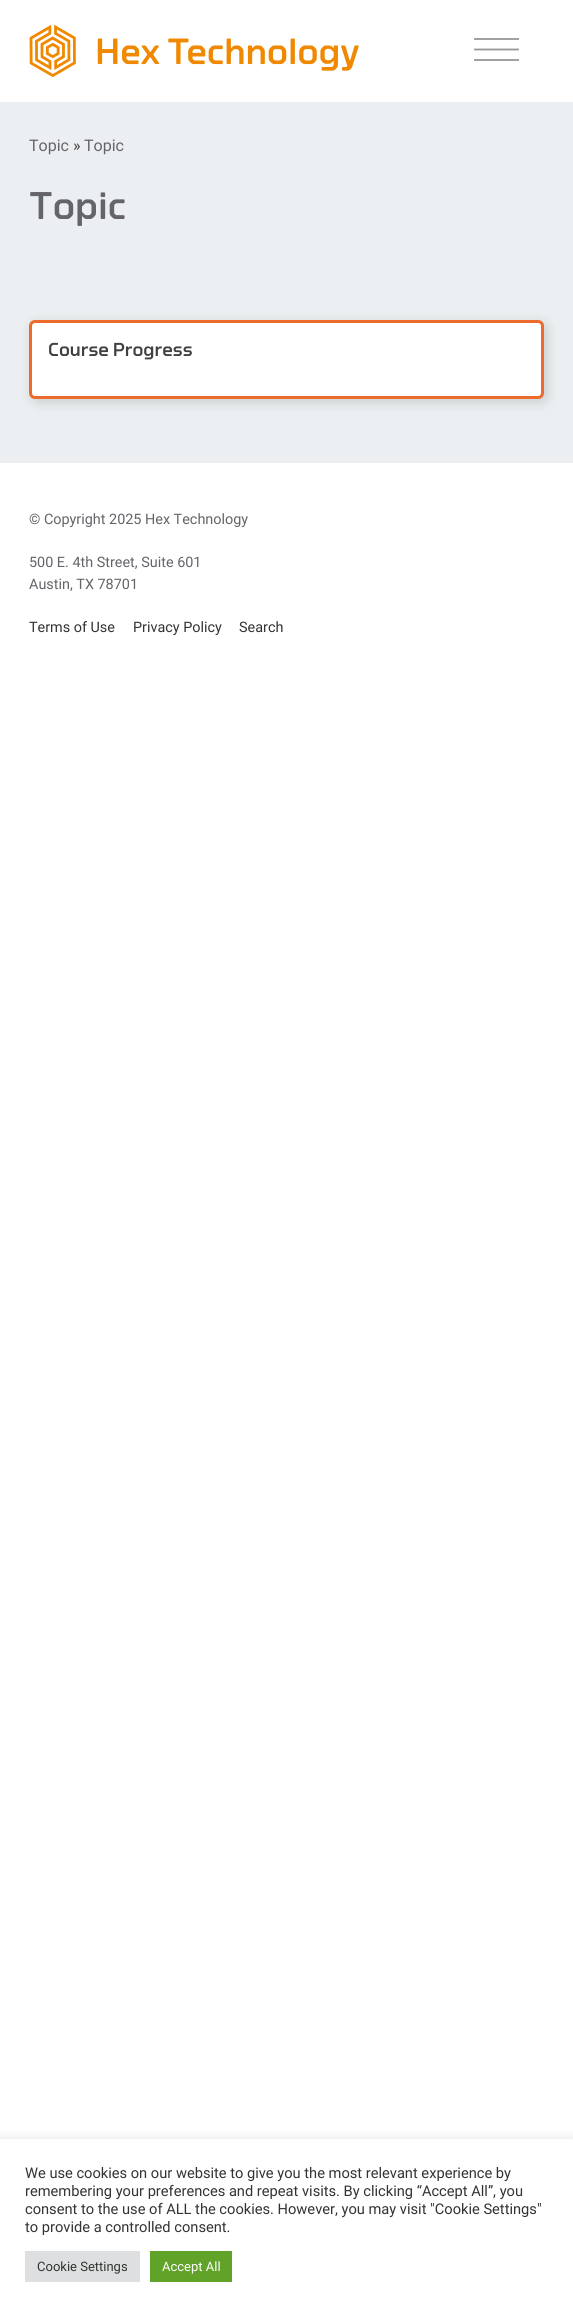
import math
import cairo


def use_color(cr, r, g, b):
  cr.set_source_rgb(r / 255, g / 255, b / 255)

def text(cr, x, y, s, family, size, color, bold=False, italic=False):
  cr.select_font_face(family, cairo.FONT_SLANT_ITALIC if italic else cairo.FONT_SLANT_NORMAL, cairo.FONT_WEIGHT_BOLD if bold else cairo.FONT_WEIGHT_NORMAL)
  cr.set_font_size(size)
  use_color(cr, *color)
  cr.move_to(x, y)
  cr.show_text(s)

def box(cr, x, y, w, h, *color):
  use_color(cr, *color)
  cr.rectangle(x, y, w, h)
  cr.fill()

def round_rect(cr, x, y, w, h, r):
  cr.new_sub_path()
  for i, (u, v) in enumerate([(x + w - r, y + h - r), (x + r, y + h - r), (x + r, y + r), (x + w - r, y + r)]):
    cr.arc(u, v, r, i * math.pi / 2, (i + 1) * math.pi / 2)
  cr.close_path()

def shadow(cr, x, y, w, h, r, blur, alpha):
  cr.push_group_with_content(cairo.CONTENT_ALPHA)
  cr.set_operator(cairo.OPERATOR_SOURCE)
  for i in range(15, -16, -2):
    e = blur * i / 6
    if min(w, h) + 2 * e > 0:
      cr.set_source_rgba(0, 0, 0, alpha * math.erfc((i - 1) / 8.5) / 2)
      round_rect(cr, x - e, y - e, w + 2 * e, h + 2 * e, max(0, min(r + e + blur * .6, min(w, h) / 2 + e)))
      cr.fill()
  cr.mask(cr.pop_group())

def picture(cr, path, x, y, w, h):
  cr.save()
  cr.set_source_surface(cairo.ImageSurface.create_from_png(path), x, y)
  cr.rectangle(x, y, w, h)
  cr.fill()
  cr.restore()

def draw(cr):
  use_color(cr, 255, 255, 255)
  cr.paint()
  picture(cr, "img_01.png", 29, 24, 330, 54)
  box(cr, 474, 38, 45, 2, 161, 161, 161)
  cr.new_path()
  cr.move_to(475, 49.5)
  cr.line_to(518, 49.5)
  use_color(cr, 151, 151, 151)
  cr.set_line_width(1.8)
  cr.set_line_cap(cairo.LINE_CAP_SQUARE)
  cr.stroke()
  box(cr, 474, 59, 45, 2, 161, 161, 161)
  box(cr, 0, 102, 573, 361, 236, 239, 241)
  use_color(cr, 0, 0, 3)
  shadow(cr, 32, 323, 515, 79, 6, 6, 0.15)
  use_color(cr, 255, 255, 255)
  round_rect(cr, 30.5, 321.5, 512, 76, 4.5)
  cr.fill_preserve()
  use_color(cr, 236, 107, 45)
  cr.set_line_width(3)
  cr.set_line_cap(cairo.LINE_CAP_BUTT)
  cr.stroke()
  cr.save()
  cr.rectangle(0, 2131, 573, 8)
  cr.clip()
  use_color(cr, 172, 171, 171)
  shadow(cr, 0, 2138, 573, 173, 0, 5, 0.3)
  cr.restore()
  box(cr, 25, 2251, 115, 31, 222, 223, 224)
  box(cr, 150, 2251, 82, 31, 97, 162, 41)
  text(cr, 29, 151, "Topic", "Roboto", 16, (100, 100, 106))
  text(cr, 73, 151, "»", "Roboto", 16, (64, 64, 64))
  text(cr, 84, 151, "Topic", "Roboto", 16, (100, 100, 106))
  text(cr, 29, 219, "Topic", "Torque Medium", 38.5, (100, 100, 106))
  text(cr, 48, 356, "Course Progress", "Torque Medium", 18.75, (64, 64, 64))
  text(cr, 29, 524, "© Copyright 2025 Hex Technology", "Roboto", 14.4, (100, 100, 106))
  text(cr, 29, 567, "500 E. 4th Street, Suite 601", "Roboto", 14.4, (100, 100, 106))
  text(cr, 29, 589, "Austin, TX 78701", "Roboto", 14.4, (100, 100, 106))
  text(cr, 29, 632, "Terms of Use", "Roboto", 14.4, (51, 51, 51))
  text(cr, 133, 632, "Privacy Policy", "Roboto", 14.4, (51, 51, 51))
  text(cr, 239, 632, "Search", "Roboto", 14.4, (51, 51, 51))
  text(cr, 25, 2178, "We use cookies on our website to give you the most relevant experience by", "Roboto", 14.65, (51, 51, 51))
  text(cr, 25, 2196, "remembering your preferences and repeat visits. By clicking “Accept All”, you", "Roboto", 14.65, (51, 51, 51))
  text(cr, 25, 2214, "consent to the use of ALL the cookies. However, you may visit \"Cookie Settings\"", "Roboto", 14.65, (51, 51, 51))
  text(cr, 25, 2232, "to provide a controlled consent.", "Roboto", 14.65, (51, 51, 51))
  text(cr, 37, 2271, "Cookie Settings", "Roboto", 13, (51, 51, 51))
  text(cr, 162, 2271, "Accept All", "Roboto", 13, (255, 255, 255))


surface = cairo.ImageSurface(cairo.FORMAT_RGB24, 573, 2312)
cr = cairo.Context(surface)
options = cairo.FontOptions()
options.set_hint_metrics(cairo.HINT_METRICS_OFF)
options.set_hint_style(cairo.HINT_STYLE_NONE)
cr.set_font_options(options)
cr.set_miter_limit(4)
draw(cr)
surface.write_to_png("out.png")
